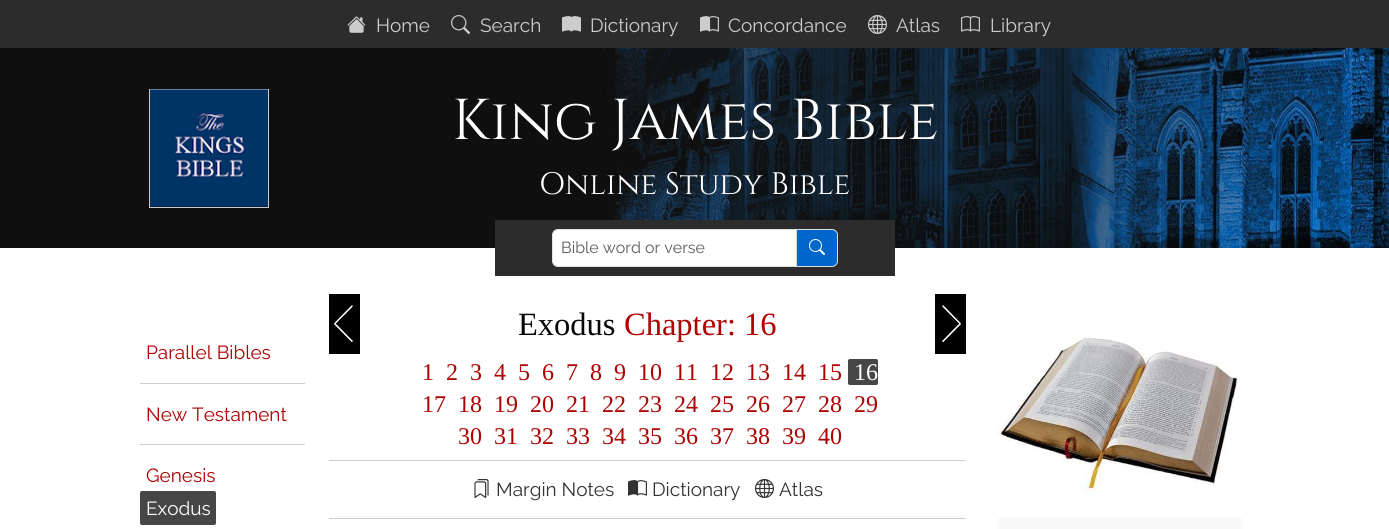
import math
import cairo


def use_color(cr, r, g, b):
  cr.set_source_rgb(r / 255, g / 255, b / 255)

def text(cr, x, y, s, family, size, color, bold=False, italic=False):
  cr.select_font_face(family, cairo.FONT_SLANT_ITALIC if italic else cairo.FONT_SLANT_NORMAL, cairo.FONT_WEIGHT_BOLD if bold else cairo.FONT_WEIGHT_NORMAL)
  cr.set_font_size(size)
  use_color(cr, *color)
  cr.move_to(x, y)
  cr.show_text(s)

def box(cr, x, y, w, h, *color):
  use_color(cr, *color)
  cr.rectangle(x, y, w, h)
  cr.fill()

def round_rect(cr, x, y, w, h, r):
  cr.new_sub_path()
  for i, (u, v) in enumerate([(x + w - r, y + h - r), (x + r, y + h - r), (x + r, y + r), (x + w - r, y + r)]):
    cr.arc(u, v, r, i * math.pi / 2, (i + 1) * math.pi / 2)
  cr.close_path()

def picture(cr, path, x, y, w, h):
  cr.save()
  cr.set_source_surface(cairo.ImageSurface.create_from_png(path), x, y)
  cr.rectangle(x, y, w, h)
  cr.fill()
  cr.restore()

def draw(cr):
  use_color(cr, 255, 255, 255)
  cr.paint()
  box(cr, 0, 0, 1389, 48, 44, 44, 44)
  picture(cr, "img_01.png", 347, 16, 19, 17)
  picture(cr, "img_02.png", 451, 15, 19, 19)
  picture(cr, "img_03.png", 562, 16, 19, 16)
  picture(cr, "img_04.png", 700, 16, 19, 16)
  picture(cr, "img_05.png", 868, 15, 19, 19)
  picture(cr, "img_06.png", 961, 16, 19, 16)
  picture(cr, "img_07.png", 0, 48, 1389, 200)
  cr.rectangle(149.5, 89.5, 119, 118)
  use_color(cr, 204, 204, 204)
  cr.set_line_width(1)
  cr.stroke()
  picture(cr, "img_08.png", 150, 89, 118, 118)
  box(cr, 495, 220, 400, 56, 44, 44, 44)
  use_color(cr, 255, 255, 255)
  cr.new_path()
  cr.move_to(558, 229.5)
  cr.line_to(796.5, 229.5)
  cr.line_to(796.5, 266.5)
  cr.line_to(558, 266.5)
  cr.curve_to(555, 266.5, 552.5, 264, 552.5, 261)
  cr.line_to(552.5, 235)
  cr.curve_to(552.5, 232, 555, 229.5, 558, 229.5)
  cr.close_path()
  cr.fill_preserve()
  use_color(cr, 222, 226, 230)
  cr.stroke()
  use_color(cr, 0, 102, 204)
  cr.new_path()
  cr.move_to(796.5, 229.5)
  cr.line_to(832, 229.5)
  cr.curve_to(835, 229.5, 837.5, 232, 837.5, 235)
  cr.line_to(837.5, 261)
  cr.curve_to(837.5, 264, 835, 266.5, 832, 266.5)
  cr.line_to(796.5, 266.5)
  cr.close_path()
  cr.fill_preserve()
  use_color(cr, 221, 221, 221)
  cr.stroke()
  picture(cr, "img_09.png", 809, 239, 16, 16)
  box(cr, 140, 383, 165, 1, 204, 206, 207)
  box(cr, 140, 444, 165, 1, 204, 206, 207)
  use_color(cr, 70, 70, 70)
  round_rect(cr, 140, 491, 76, 34, 2)
  cr.fill()
  picture(cr, "img_10.png", 329, 294, 31, 60)
  picture(cr, "img_11.png", 935, 294, 31, 60)
  round_rect(cr, 848, 359, 30, 26, 2)
  cr.fill()
  box(cr, 329, 460, 637, 1, 204, 206, 207)
  picture(cr, "img_12.png", 474, 479, 15, 19)
  picture(cr, "img_13.png", 628, 480, 19, 16)
  picture(cr, "img_14.png", 755, 479, 19, 19)
  box(cr, 329, 518, 637, 1, 204, 206, 207)
  picture(cr, "img_15.png", 998, 336, 242, 156)
  box(cr, 998, 518, 244, 11, 249, 249, 249)
  text(cr, 376, 32, "Home", "Raleway", 19, (204, 204, 204))
  text(cr, 480, 32, "Search", "Raleway", 19, (204, 204, 204))
  text(cr, 590, 32, "Dictionary", "Raleway", 19, (204, 204, 204))
  text(cr, 728, 32, "Concordance", "Raleway", 19, (204, 204, 204))
  text(cr, 896, 32, "Atlas", "Raleway", 19, (204, 204, 204))
  text(cr, 990, 32, "Library", "Raleway", 19, (204, 204, 204))
  text(cr, 452, 139, "King James Bible", "Cinzel", 57.5, (255, 255, 255))
  text(cr, 539, 194, "Online Study Bible", "Cinzel", 31, (255, 255, 255))
  text(cr, 561, 253, "Bible word or verse", "Raleway", 16, (89, 92, 95))
  text(cr, 146, 359, "Parallel Bibles", "Raleway", 19, (175, 0, 0))
  text(cr, 146, 421, "New Testament", "Raleway", 19, (175, 0, 0))
  text(cr, 146, 482, "Genesis", "Raleway", 19, (175, 0, 0))
  text(cr, 146, 515, "Exodus", "Raleway", 19, (255, 255, 255))
  text(cr, 518, 335, "Exodus", "Liberation Serif", 32.5, (6, 6, 6))
  text(cr, 624, 335, "Chapter: 16", "Liberation Serif", 32.5, (175, 0, 0))
  text(cr, 422, 380, "1", "Liberation Serif", 24, (175, 0, 0))
  text(cr, 446, 380, "2", "Liberation Serif", 24, (175, 0, 0))
  text(cr, 470, 380, "3", "Liberation Serif", 24, (175, 0, 0))
  text(cr, 494, 380, "4", "Liberation Serif", 24, (175, 0, 0))
  text(cr, 518, 380, "5", "Liberation Serif", 24, (175, 0, 0))
  text(cr, 542, 380, "6", "Liberation Serif", 24, (175, 0, 0))
  text(cr, 566, 380, "7", "Liberation Serif", 24, (175, 0, 0))
  text(cr, 590, 380, "8", "Liberation Serif", 24, (175, 0, 0))
  text(cr, 614, 380, "9", "Liberation Serif", 24, (175, 0, 0))
  text(cr, 638, 380, "10", "Liberation Serif", 24, (175, 0, 0))
  text(cr, 674, 380, "11", "Liberation Serif", 24, (175, 0, 0))
  text(cr, 710, 380, "12", "Liberation Serif", 24, (175, 0, 0))
  text(cr, 746, 380, "13", "Liberation Serif", 24, (175, 0, 0))
  text(cr, 782, 380, "14", "Liberation Serif", 24, (175, 0, 0))
  text(cr, 818, 380, "15", "Liberation Serif", 24, (175, 0, 0))
  text(cr, 854, 380, "16", "Liberation Serif", 24, (255, 255, 255))
  text(cr, 422, 412, "17", "Liberation Serif", 24, (175, 0, 0))
  text(cr, 458, 412, "18", "Liberation Serif", 24, (175, 0, 0))
  text(cr, 494, 412, "19", "Liberation Serif", 24, (175, 0, 0))
  text(cr, 530, 412, "20", "Liberation Serif", 24, (175, 0, 0))
  text(cr, 566, 412, "21", "Liberation Serif", 24, (175, 0, 0))
  text(cr, 602, 412, "22", "Liberation Serif", 24, (175, 0, 0))
  text(cr, 638, 412, "23", "Liberation Serif", 24, (175, 0, 0))
  text(cr, 674, 412, "24", "Liberation Serif", 24, (175, 0, 0))
  text(cr, 710, 412, "25", "Liberation Serif", 24, (175, 0, 0))
  text(cr, 746, 412, "26", "Liberation Serif", 24, (175, 0, 0))
  text(cr, 782, 412, "27", "Liberation Serif", 24, (175, 0, 0))
  text(cr, 818, 412, "28", "Liberation Serif", 24, (175, 0, 0))
  text(cr, 854, 412, "29", "Liberation Serif", 24, (175, 0, 0))
  text(cr, 458, 444, "30", "Liberation Serif", 24, (175, 0, 0))
  text(cr, 494, 444, "31", "Liberation Serif", 24, (175, 0, 0))
  text(cr, 530, 444, "32", "Liberation Serif", 24, (175, 0, 0))
  text(cr, 566, 444, "33", "Liberation Serif", 24, (175, 0, 0))
  text(cr, 602, 444, "34", "Liberation Serif", 24, (175, 0, 0))
  text(cr, 638, 444, "35", "Liberation Serif", 24, (175, 0, 0))
  text(cr, 674, 444, "36", "Liberation Serif", 24, (175, 0, 0))
  text(cr, 710, 444, "37", "Liberation Serif", 24, (175, 0, 0))
  text(cr, 746, 444, "38", "Liberation Serif", 24, (175, 0, 0))
  text(cr, 782, 444, "39", "Liberation Serif", 24, (175, 0, 0))
  text(cr, 818, 444, "40", "Liberation Serif", 24, (175, 0, 0))
  text(cr, 496, 496, "Margin Notes", "Raleway", 19, (51, 51, 51))
  text(cr, 652, 496, "Dictionary", "Raleway", 19, (51, 51, 51))
  text(cr, 779, 496, "Atlas", "Raleway", 19, (51, 51, 51))


surface = cairo.ImageSurface(cairo.FORMAT_RGB24, 1389, 529)
cr = cairo.Context(surface)
options = cairo.FontOptions()
options.set_hint_metrics(cairo.HINT_METRICS_OFF)
options.set_hint_style(cairo.HINT_STYLE_NONE)
cr.set_font_options(options)
cr.set_miter_limit(4)
draw(cr)
surface.write_to_png("out.png")
